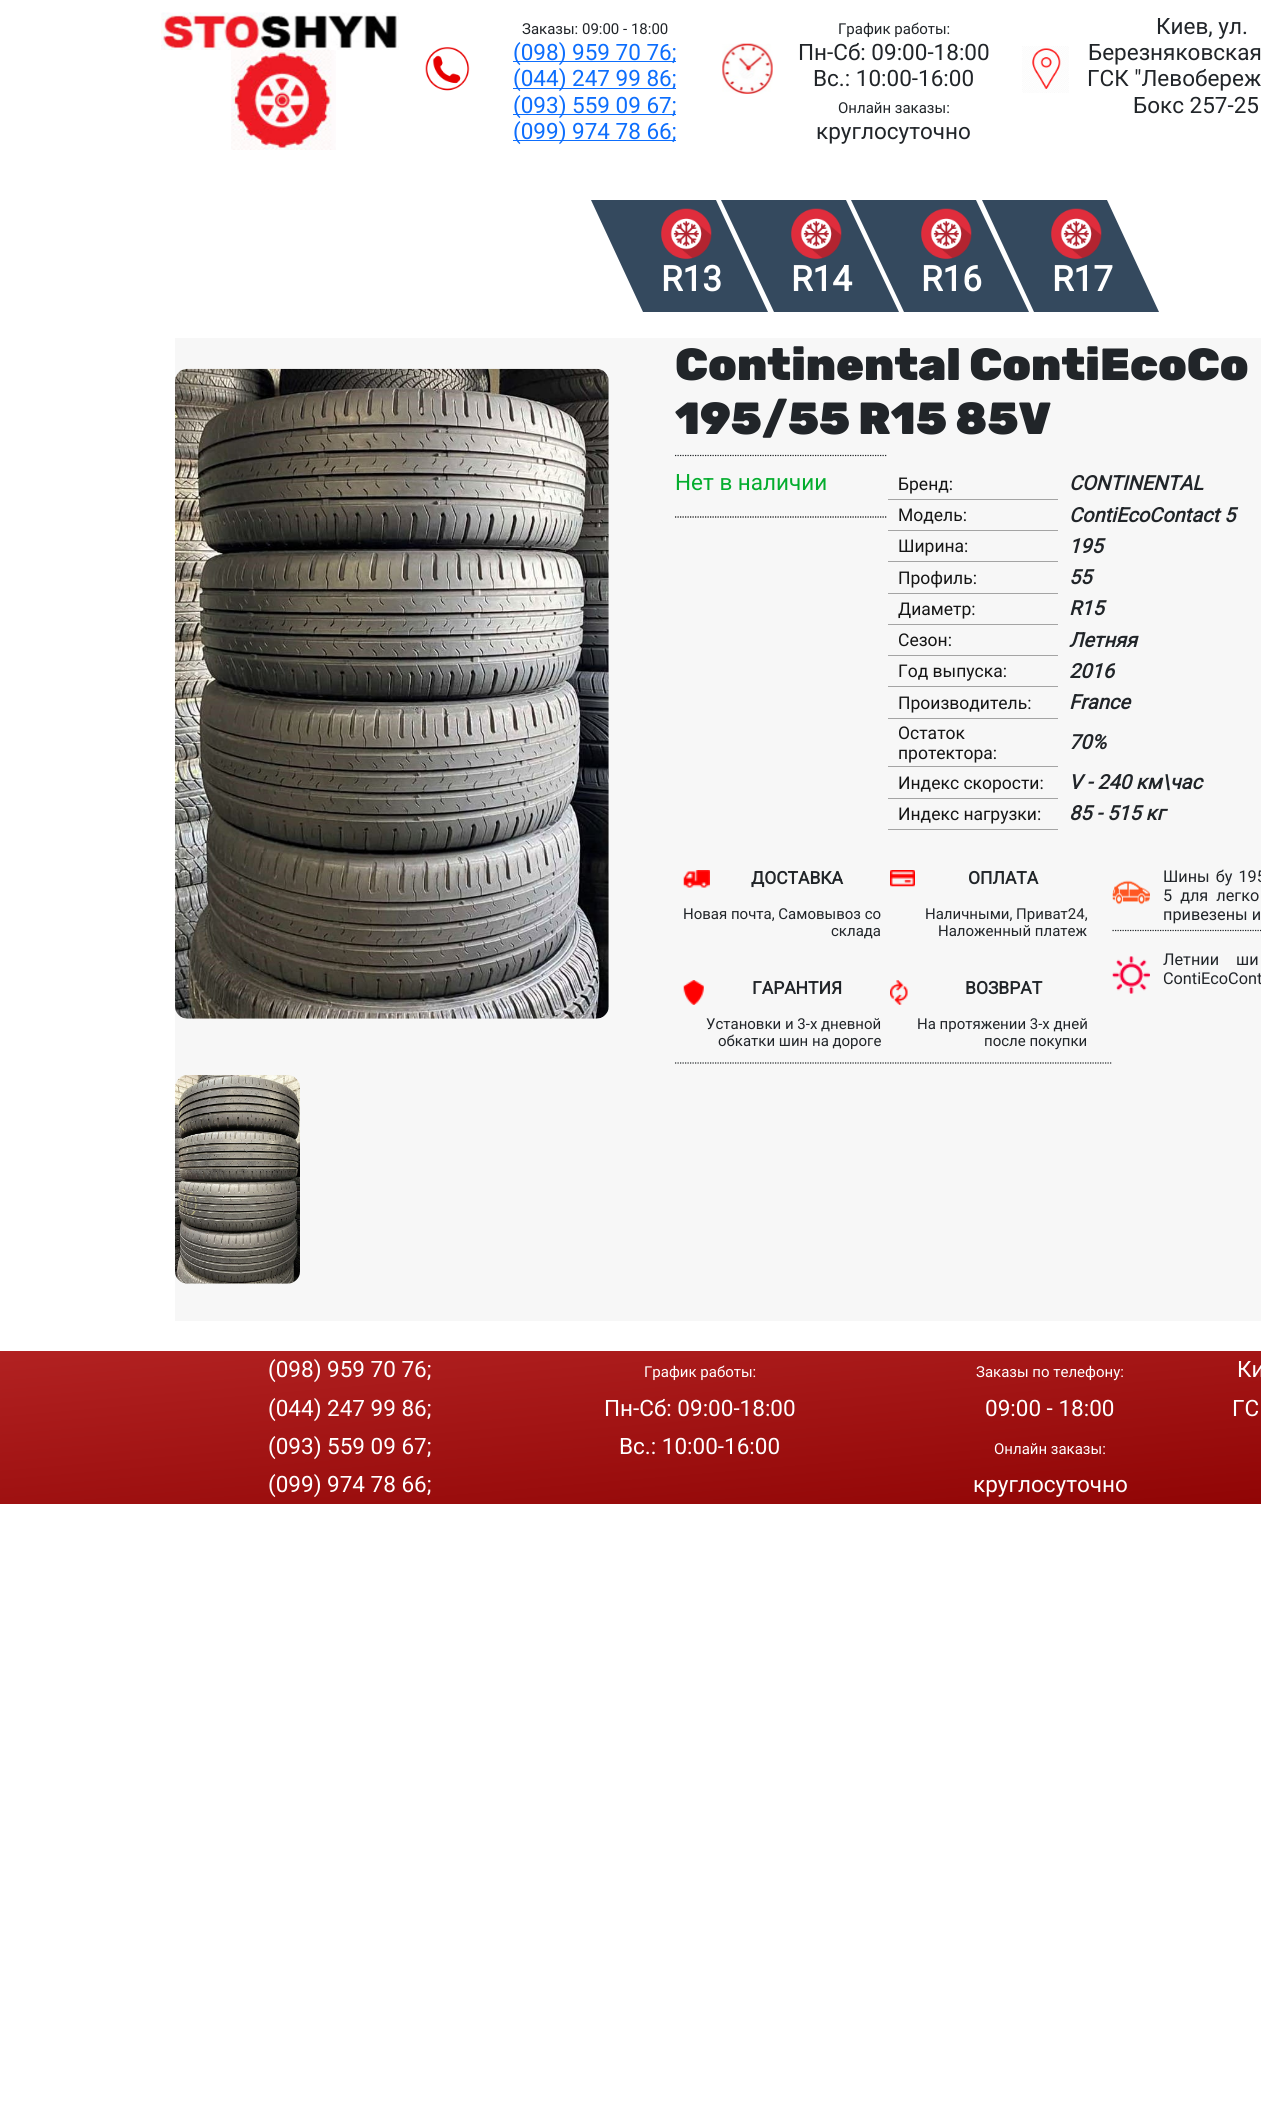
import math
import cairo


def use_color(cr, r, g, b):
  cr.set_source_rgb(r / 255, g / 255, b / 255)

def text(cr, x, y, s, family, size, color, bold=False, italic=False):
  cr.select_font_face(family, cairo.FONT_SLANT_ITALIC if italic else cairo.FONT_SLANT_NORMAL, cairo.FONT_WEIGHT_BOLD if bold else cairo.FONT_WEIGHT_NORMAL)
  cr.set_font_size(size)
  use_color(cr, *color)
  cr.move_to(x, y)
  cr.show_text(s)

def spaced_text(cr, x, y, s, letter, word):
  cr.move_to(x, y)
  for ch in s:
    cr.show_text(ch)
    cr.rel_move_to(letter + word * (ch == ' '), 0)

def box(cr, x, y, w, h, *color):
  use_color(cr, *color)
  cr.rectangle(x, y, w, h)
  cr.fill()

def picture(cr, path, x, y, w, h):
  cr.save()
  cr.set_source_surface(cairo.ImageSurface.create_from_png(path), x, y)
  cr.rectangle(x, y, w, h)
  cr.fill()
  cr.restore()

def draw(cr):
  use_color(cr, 255, 255, 255)
  cr.paint()
  picture(cr, "img_01.png", 161, 12, 238, 38)
  picture(cr, "img_02.png", 231, 50, 105, 100)
  picture(cr, "img_03.png", 425, 47, 45, 44)
  box(cr, 513, 61, 163, 1, 13, 110, 253)
  box(cr, 513, 88, 163, 1, 13, 110, 253)
  box(cr, 513, 114, 163, 1, 13, 110, 253)
  box(cr, 513, 140, 163, 1, 13, 110, 253)
  picture(cr, "img_04.png", 722, 43, 51, 51)
  picture(cr, "img_05.png", 1022, 46, 47, 47)
  use_color(cr, 52, 73, 94)
  cr.new_path()
  cr.move_to(591, 200)
  cr.line_to(716, 200)
  cr.line_to(768, 312)
  cr.line_to(643, 312)
  cr.close_path()
  cr.fill()
  picture(cr, "img_06.png", 661, 208, 51, 51)
  cr.new_path()
  cr.move_to(721, 200)
  cr.line_to(846, 200)
  cr.line_to(899, 312)
  cr.line_to(774, 312)
  cr.close_path()
  cr.fill()
  picture(cr, "img_06.png", 791, 208, 51, 51)
  box(cr, 175, 338, 1086, 983, 247, 247, 247)
  picture(cr, "img_08.png", 175, 368, 434, 651)
  picture(cr, "img_09.png", 175, 1075, 125, 209)
  cr.new_path()
  cr.move_to(675, 455.5)
  cr.line_to(887.5, 455.5)
  use_color(cr, 33, 37, 41)
  cr.set_line_width(1.2)
  cr.set_dash([1.25, 1.25])
  cr.stroke()
  cr.new_path()
  cr.move_to(675, 517)
  cr.line_to(887.5, 517)
  use_color(cr, 0, 0, 0)
  cr.stroke()
  box(cr, 888, 499, 170, 1, 164, 164, 164)
  box(cr, 888, 530, 170, 1, 164, 164, 164)
  box(cr, 888, 561, 170, 1, 164, 164, 164)
  box(cr, 888, 593, 170, 1, 164, 164, 164)
  box(cr, 888, 624, 170, 1, 164, 164, 164)
  box(cr, 888, 655, 170, 1, 164, 164, 164)
  box(cr, 888, 686, 170, 1, 164, 164, 164)
  box(cr, 888, 718, 170, 1, 164, 164, 164)
  box(cr, 888, 766, 170, 1, 164, 164, 164)
  box(cr, 888, 798, 170, 1, 164, 164, 164)
  box(cr, 888, 829, 170, 1, 164, 164, 164)
  cr.new_path()
  cr.move_to(675, 1063)
  cr.line_to(1112.5, 1063)
  use_color(cr, 33, 37, 41)
  cr.stroke()
  picture(cr, "img_10.png", 683, 870, 27, 18)
  picture(cr, "img_11.png", 890, 870, 25, 17)
  picture(cr, "img_12.png", 683, 980, 21, 25)
  picture(cr, "img_13.png", 890, 980, 18, 25)
  cr.new_path()
  cr.move_to(1112.5, 930.5)
  cr.line_to(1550, 930.5)
  cr.stroke()
  picture(cr, "img_14.png", 1112, 880, 38, 25)
  picture(cr, "img_15.png", 1112, 956, 38, 38)
  gradient = cairo.LinearGradient(888, 1579, 862, 1276)
  gradient.add_color_stop_rgba(0, 0.545, 0, 0, 1)
  gradient.add_color_stop_rgba(1, 0.698, 0.133, 0.133, 1)
  cr.set_source(gradient)
  cr.rectangle(0, 1351, 1261, 153)
  cr.fill()
  text(cr, 522, 34, "Заказы: 09:00 - 18:00", "Roboto", 15, (33, 37, 41))
  text(cr, 513, 60, "(098) 959 70 76;", "Roboto", 22.5, (13, 110, 253))
  text(cr, 513, 86, "(044) 247 99 86;", "Roboto", 22.5, (13, 110, 253))
  text(cr, 513, 113, "(093) 559 09 67;", "Roboto", 22.5, (13, 110, 253))
  text(cr, 513, 139, "(099) 974 78 66;", "Roboto", 22.5, (13, 110, 253))
  text(cr, 838, 34, "График работы:", "Roboto", 15, (33, 37, 41))
  text(cr, 798, 60, "Пн-Сб: 09:00-18:00", "Roboto", 22.5, (33, 37, 41))
  text(cr, 813, 86, "Вс.: 10:00-16:00", "Roboto", 22.5, (33, 37, 41))
  text(cr, 838, 113, "Онлайн заказы:", "Roboto", 15, (33, 37, 41))
  text(cr, 816, 139, "круглосуточно", "Roboto", 22.5, (33, 37, 41))
  text(cr, 1156, 34, "Киев, ул.", "Roboto", 22.5, (33, 37, 41))
  text(cr, 1088, 60, "Березняковская", "Roboto", 22.5, (33, 37, 41))
  text(cr, 1087, 86, "ГСК \"Левобереж", "Roboto", 22.5, (33, 37, 41))
  text(cr, 1133, 113, "Бокс 257-25", "Roboto", 22.5, (33, 37, 41))
  text(cr, 661, 291, "R13", "Roboto", 35, (255, 255, 255), bold=True)
  text(cr, 791, 291, "R14", "Roboto", 35, (255, 255, 255), bold=True)
  use_color(cr, 52, 73, 94)
  cr.new_path()
  cr.move_to(851, 200)
  cr.line_to(976, 200)
  cr.line_to(1029, 312)
  cr.line_to(904, 312)
  cr.close_path()
  cr.fill()
  picture(cr, "img_06.png", 921, 208, 51, 51)
  text(cr, 921, 291, "R16", "Roboto", 35, (255, 255, 255), bold=True)
  use_color(cr, 52, 73, 94)
  cr.new_path()
  cr.move_to(982, 200)
  cr.line_to(1107, 200)
  cr.line_to(1159, 312)
  cr.line_to(1034, 312)
  cr.close_path()
  cr.fill()
  picture(cr, "img_07.png", 1051, 208, 51, 51)
  text(cr, 1052, 291, "R17", "Roboto", 35, (255, 255, 255), bold=True)
  text(cr, 675, 380, "Continental ContiEcoCo", "Rubik Light", 45, (33, 37, 41))
  text(cr, 675, 434, "195/55 R15 85V", "Rubik Light", 45, (33, 37, 41))
  text(cr, 675, 490, "Нет в наличии", "Roboto", 22.5, (4, 173, 46))
  text(cr, 898, 490, "Бренд:", "Roboto", 17.5, (21, 21, 21))
  text(cr, 1069, 490, "CONTINENTAL", "Roboto", 20, (33, 37, 41), bold=True, italic=True)
  text(cr, 898, 521, "Модель:", "Roboto", 17.5, (21, 21, 21))
  text(cr, 1069, 522, "ContiEcoContact 5", "Roboto", 20, (33, 37, 41), bold=True, italic=True)
  text(cr, 898, 552, "Ширина:", "Roboto", 17.5, (21, 21, 21))
  text(cr, 1069, 553, "195", "Roboto", 20, (33, 37, 41), bold=True, italic=True)
  text(cr, 898, 584, "Профиль:", "Roboto", 17.5, (21, 21, 21))
  text(cr, 1069, 584, "55", "Roboto", 20, (33, 37, 41), bold=True, italic=True)
  text(cr, 898, 615, "Диаметр:", "Roboto", 17.5, (21, 21, 21))
  text(cr, 1069, 615, "R15", "Roboto", 20, (33, 37, 41), bold=True, italic=True)
  text(cr, 898, 646, "Сезон:", "Roboto", 17.5, (21, 21, 21))
  text(cr, 1069, 647, "Летняя", "Roboto", 20, (33, 37, 41), bold=True, italic=True)
  text(cr, 898, 677, "Год выпуска:", "Roboto", 17.5, (21, 21, 21))
  text(cr, 1069, 678, "2016", "Roboto", 20, (33, 37, 41), bold=True, italic=True)
  text(cr, 898, 709, "Производитель:", "Roboto", 17.5, (21, 21, 21))
  text(cr, 1069, 709, "France", "Roboto", 20, (33, 37, 41), bold=True, italic=True)
  text(cr, 898, 739, "Остаток", "Roboto", 17.5, (21, 21, 21))
  text(cr, 898, 759, "протектора:", "Roboto", 17.5, (21, 21, 21))
  text(cr, 1069, 749, "70%", "Roboto", 20, (33, 37, 41), bold=True, italic=True)
  text(cr, 898, 789, "Индекс скорости:", "Roboto", 17.5, (21, 21, 21))
  text(cr, 1069, 789, "V - 240 км\\час", "Roboto", 20, (33, 37, 41), bold=True, italic=True)
  text(cr, 898, 820, "Индекс нагрузки:", "Roboto", 17.5, (21, 21, 21))
  text(cr, 1069, 820, "85 - 515 кг", "Roboto", 20, (33, 37, 41), bold=True, italic=True)
  text(cr, 751, 884, "ДОСТАВКА", "Roboto", 17.5, (33, 37, 41), bold=True)
  text(cr, 683, 919, "Новая почта, Самовывоз со", "Roboto", 15, (33, 37, 41))
  text(cr, 831, 936, "склада", "Roboto", 15, (33, 37, 41))
  text(cr, 968, 884, "ОПЛАТА", "Roboto", 17.5, (33, 37, 41), bold=True)
  text(cr, 925, 919, "Наличными, Приват24,", "Roboto", 15, (33, 37, 41))
  text(cr, 938, 936, "Наложенный платеж", "Roboto", 15, (33, 37, 41))
  text(cr, 752, 994, "ГАРАНТИЯ", "Roboto", 17.5, (33, 37, 41), bold=True)
  text(cr, 706, 1029, "Установки и 3-х дневной", "Roboto", 15, (33, 37, 41))
  text(cr, 718, 1046, "обкатки шин на дороге", "Roboto", 15, (33, 37, 41))
  text(cr, 965, 994, "ВОЗВРАТ", "Roboto", 17.5, (33, 37, 41), bold=True)
  text(cr, 917, 1029, "На протяжении 3-х дней", "Roboto", 15, (33, 37, 41))
  text(cr, 984, 1046, "после покупки", "Roboto", 15, (33, 37, 41))
  cr.set_font_size(16.25)
  spaced_text(cr, 1163, 882, "Шины бу 195", 0, 2)
  spaced_text(cr, 1163, 901, "5 для легко", 0, 4)
  text(cr, 1163, 920, "привезены и", "Roboto", 16.25, (33, 37, 41))
  spaced_text(cr, 1163, 965, "Летнии ши", 0, 13)
  text(cr, 1163, 984, "ContiEcoCont", "Roboto", 16.25, (33, 37, 41))
  text(cr, 268, 1377, "(098) 959 70 76;", "Roboto", 22.5, (255, 255, 255))
  text(cr, 268, 1416, "(044) 247 99 86;", "Roboto", 22.5, (255, 255, 255))
  text(cr, 268, 1454, "(093) 559 09 67;", "Roboto", 22.5, (255, 255, 255))
  text(cr, 268, 1492, "(099) 974 78 66;", "Roboto", 22.5, (255, 255, 255))
  text(cr, 644, 1377, "График работы:", "Roboto", 15, (255, 255, 255))
  text(cr, 604, 1416, "Пн-Сб: 09:00-18:00", "Roboto", 22.5, (255, 255, 255))
  text(cr, 619, 1454, "Вс.: 10:00-16:00", "Roboto", 22.5, (255, 255, 255))
  text(cr, 976, 1377, "Заказы по телефону:", "Roboto", 15, (255, 255, 255))
  text(cr, 985, 1416, "09:00 - 18:00", "Roboto", 22.5, (255, 255, 255))
  text(cr, 994, 1454, "Онлайн заказы:", "Roboto", 15, (255, 255, 255))
  text(cr, 973, 1492, "круглосуточно", "Roboto", 22.5, (255, 255, 255))
  text(cr, 1237, 1377, "Ки", "Roboto", 22.5, (255, 255, 255))
  text(cr, 1232, 1416, "ГС", "Roboto", 22.5, (255, 255, 255))


surface = cairo.ImageSurface(cairo.FORMAT_RGB24, 1261, 2124)
cr = cairo.Context(surface)
options = cairo.FontOptions()
options.set_hint_metrics(cairo.HINT_METRICS_OFF)
options.set_hint_style(cairo.HINT_STYLE_NONE)
cr.set_font_options(options)
cr.set_miter_limit(4)
draw(cr)
surface.write_to_png("out.png")
